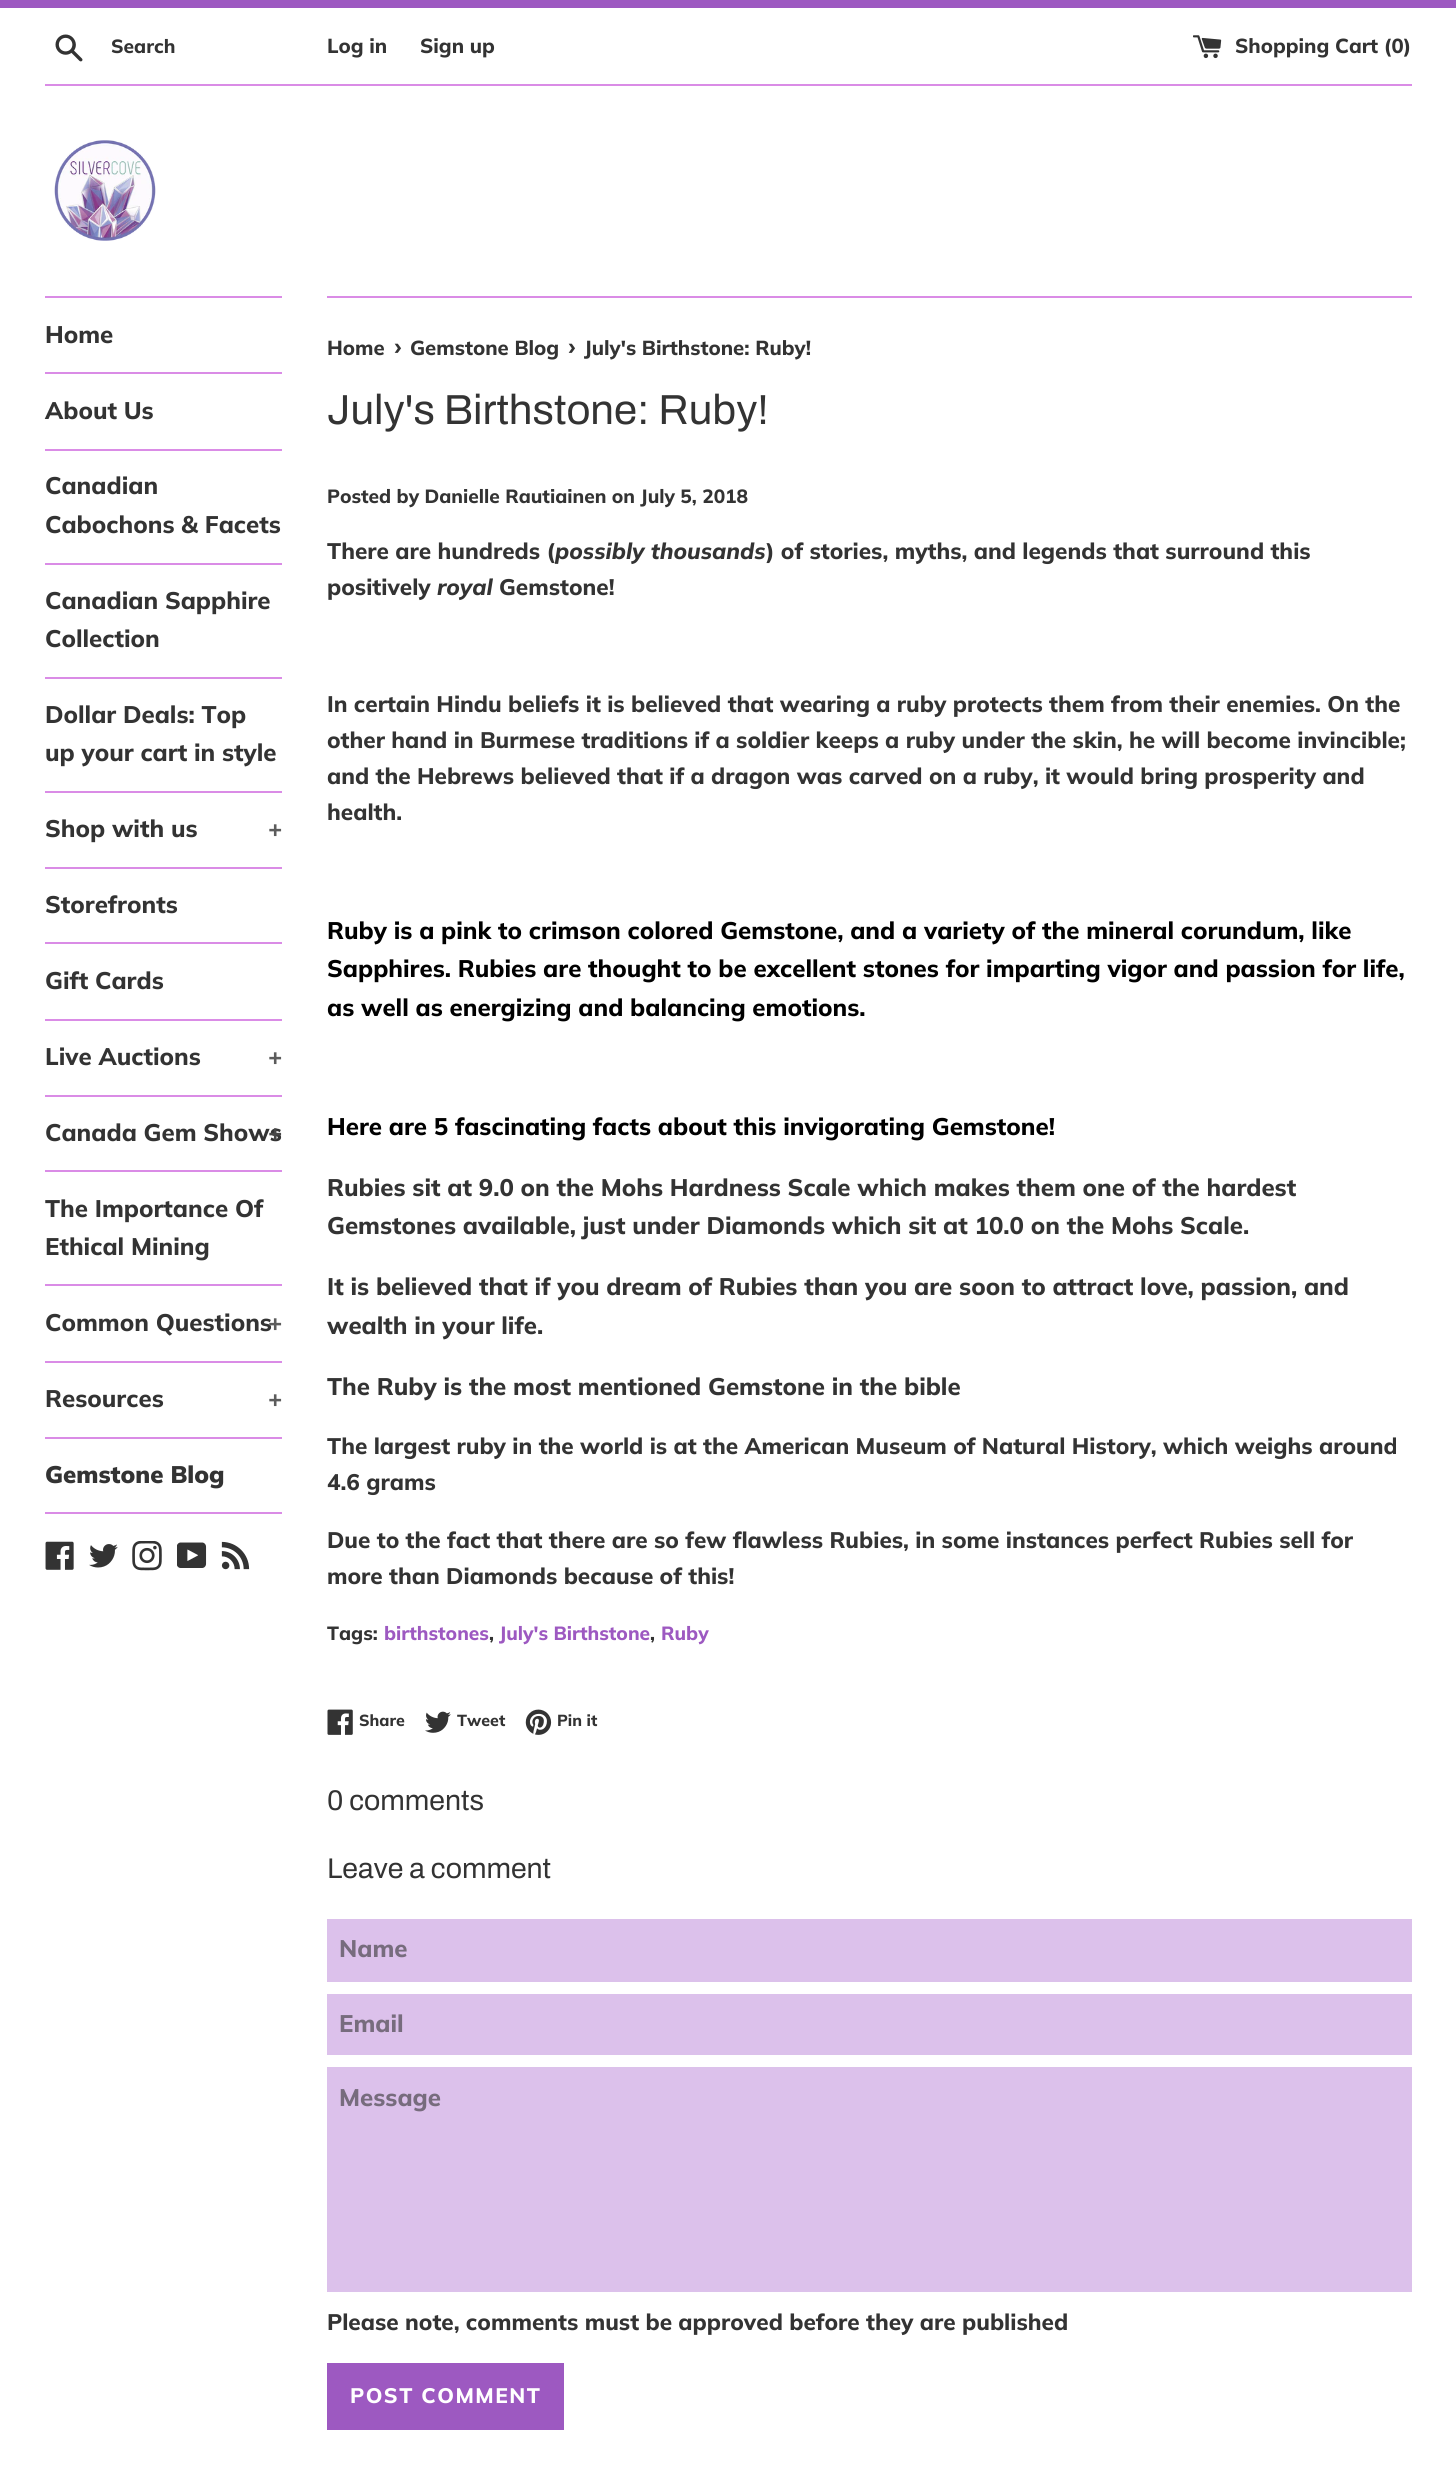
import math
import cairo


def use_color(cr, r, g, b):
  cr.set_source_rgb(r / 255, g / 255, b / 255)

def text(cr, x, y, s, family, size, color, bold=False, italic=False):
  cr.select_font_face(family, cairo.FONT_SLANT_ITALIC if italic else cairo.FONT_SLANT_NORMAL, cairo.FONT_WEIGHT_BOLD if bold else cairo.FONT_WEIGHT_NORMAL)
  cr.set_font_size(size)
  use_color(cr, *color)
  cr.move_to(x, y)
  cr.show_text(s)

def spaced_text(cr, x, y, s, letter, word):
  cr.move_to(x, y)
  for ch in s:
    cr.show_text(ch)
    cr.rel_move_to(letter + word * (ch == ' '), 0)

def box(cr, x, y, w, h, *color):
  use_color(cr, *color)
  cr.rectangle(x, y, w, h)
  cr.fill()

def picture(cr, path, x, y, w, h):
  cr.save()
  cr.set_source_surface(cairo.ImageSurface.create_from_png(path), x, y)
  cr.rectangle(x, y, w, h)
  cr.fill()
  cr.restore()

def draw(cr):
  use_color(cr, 255, 255, 255)
  cr.paint()
  box(cr, 0, 0, 1456, 8, 157, 89, 193)
  picture(cr, "img_01.png", 55, 34, 28, 28)
  picture(cr, "img_02.png", 1193, 35, 29, 24)
  box(cr, 45, 84, 1367, 2, 218, 140, 230)
  picture(cr, "img_03.png", 54, 140, 102, 101)
  box(cr, 45, 296, 237, 2, 218, 140, 230)
  box(cr, 45, 372, 237, 2, 218, 140, 230)
  box(cr, 45, 449, 237, 2, 218, 140, 230)
  box(cr, 45, 563, 237, 2, 218, 140, 230)
  box(cr, 45, 677, 237, 2, 218, 140, 230)
  box(cr, 45, 791, 237, 2, 218, 140, 230)
  box(cr, 45, 867, 237, 2, 218, 140, 230)
  box(cr, 45, 942, 237, 2, 218, 140, 230)
  box(cr, 45, 1019, 237, 2, 218, 140, 230)
  box(cr, 45, 1095, 237, 2, 218, 140, 230)
  box(cr, 45, 1170, 237, 2, 218, 140, 230)
  box(cr, 45, 1284, 237, 2, 218, 140, 230)
  box(cr, 45, 1361, 237, 2, 218, 140, 230)
  box(cr, 45, 1437, 237, 2, 218, 140, 230)
  box(cr, 45, 1512, 237, 2, 218, 140, 230)
  picture(cr, "img_04.png", 45, 1541, 29, 29)
  picture(cr, "img_05.png", 89, 1544, 29, 24)
  picture(cr, "img_06.png", 132, 1541, 30, 30)
  picture(cr, "img_07.png", 177, 1542, 30, 26)
  picture(cr, "img_08.png", 221, 1541, 29, 29)
  box(cr, 327, 296, 1085, 2, 218, 140, 230)
  picture(cr, "img_09.png", 327, 1709, 26, 26)
  picture(cr, "img_10.png", 425, 1711, 26, 22)
  picture(cr, "img_11.png", 525, 1709, 27, 26)
  box(cr, 327, 1919, 1085, 63, 220, 193, 235)
  box(cr, 327, 1994, 1085, 61, 220, 193, 235)
  box(cr, 327, 2067, 1085, 225, 220, 193, 235)
  box(cr, 327, 2363, 237, 67, 157, 89, 193)
  text(cr, 111, 53, "Search", "Muli ExtraBold", 19.1, (51, 51, 51))
  text(cr, 327, 53, "Log in", "Muli ExtraBold", 20.25, (51, 51, 51))
  text(cr, 420, 53, "Sign up", "Muli ExtraBold", 20.25, (51, 51, 51))
  text(cr, 1235, 53, "Shopping Cart (0)", "Muli ExtraBold", 20.25, (51, 51, 51))
  text(cr, 45, 343, "Home", "Muli ExtraBold", 24, (51, 51, 51))
  text(cr, 45, 419, "About Us", "Muli ExtraBold", 24, (51, 51, 51))
  text(cr, 45, 494, "Canadian", "Muli ExtraBold", 24, (51, 51, 51))
  text(cr, 45, 533, "Cabochons & Facets", "Muli ExtraBold", 24, (51, 51, 51))
  text(cr, 45, 609, "Canadian Sapphire", "Muli ExtraBold", 24, (51, 51, 51))
  text(cr, 45, 647, "Collection", "Muli ExtraBold", 24, (51, 51, 51))
  text(cr, 45, 723, "Dollar Deals: Top", "Muli ExtraBold", 24, (51, 51, 51))
  text(cr, 45, 761, "up your cart in style", "Muli ExtraBold", 24, (51, 51, 51))
  text(cr, 45, 837, "Shop with us", "Muli ExtraBold", 24, (51, 51, 51))
  text(cr, 268, 837, "+", "Muli ExtraBold", 24, (92, 92, 92))
  text(cr, 45, 913, "Storefronts", "Muli ExtraBold", 24, (51, 51, 51))
  text(cr, 45, 989, "Gift Cards", "Muli ExtraBold", 24, (51, 51, 51))
  text(cr, 45, 1065, "Live Auctions", "Muli ExtraBold", 24, (51, 51, 51))
  text(cr, 268, 1065, "+", "Muli ExtraBold", 24, (92, 92, 92))
  text(cr, 45, 1141, "Canada Gem Shows", "Muli ExtraBold", 24, (51, 51, 51))
  text(cr, 268, 1141, "+", "Muli ExtraBold", 24, (71, 71, 71))
  text(cr, 45, 1217, "The Importance Of", "Muli ExtraBold", 24, (51, 51, 51))
  text(cr, 45, 1255, "Ethical Mining", "Muli ExtraBold", 24, (51, 51, 51))
  text(cr, 45, 1331, "Common Questions", "Muli ExtraBold", 24, (51, 51, 51))
  text(cr, 268, 1331, "+", "Muli ExtraBold", 24, (92, 92, 92))
  text(cr, 45, 1407, "Resources", "Muli ExtraBold", 24, (51, 51, 51))
  text(cr, 268, 1407, "+", "Muli ExtraBold", 24, (92, 92, 92))
  text(cr, 45, 1483, "Gemstone Blog", "Muli Black", 24, (51, 51, 51))
  text(cr, 327, 355, "Home", "Muli ExtraBold", 20.25, (51, 51, 51))
  text(cr, 394, 355, "›", "Muli ExtraBold", 25, (51, 51, 51))
  text(cr, 410, 355, "Gemstone Blog", "Muli ExtraBold", 20.25, (51, 51, 51))
  text(cr, 568, 355, "›", "Muli ExtraBold", 25, (51, 51, 51))
  text(cr, 584, 355, "July's Birthstone: Ruby!", "Muli ExtraBold", 20.25, (51, 51, 51))
  text(cr, 327, 424, "July's Birthstone: Ruby!", "Archivo", 42, (51, 51, 51))
  text(cr, 327, 503, "Posted by Danielle Rautiainen on July 5, 2018", "Muli ExtraBold", 19.1, (51, 51, 51))
  text(cr, 327, 559, "There are hundreds (", "Muli ExtraBold", 22.5, (51, 51, 51))
  text(cr, 555, 559, "possibly thousands", "Muli ExtraBold", 22.5, (51, 51, 51), italic=True)
  text(cr, 766, 559, ") of stories, myths, and legends that surround this", "Muli ExtraBold", 22.5, (51, 51, 51))
  text(cr, 327, 595, "positively", "Muli ExtraBold", 22.5, (51, 51, 51))
  text(cr, 437, 595, "royal", "Muli ExtraBold", 22.5, (51, 51, 51), italic=True)
  text(cr, 499, 595, "Gemstone!", "Muli ExtraBold", 22.5, (51, 51, 51))
  text(cr, 327, 712, "In certain Hindu beliefs it is believed that wearing a ruby protects them from their enemies. On the", "Muli ExtraBold", 22.5, (51, 51, 51))
  text(cr, 327, 748, "other hand in Burmese traditions if a soldier keeps a ruby under the skin, he will become invincible;", "Muli ExtraBold", 22.5, (51, 51, 51))
  text(cr, 327, 784, "and the Hebrews believed that if a dragon was carved on a ruby, it would bring prosperity and", "Muli ExtraBold", 22.5, (51, 51, 51))
  text(cr, 327, 820, "health.", "Muli ExtraBold", 22.5, (51, 51, 51))
  text(cr, 327, 939, "Ruby is a pink to crimson colored Gemstone, and a variety of the mineral corundum, like", "Muli ExtraBold", 24, (0, 0, 0))
  text(cr, 327, 977, "Sapphires. Rubies are thought to be excellent stones for imparting vigor and passion for life,", "Muli ExtraBold", 24, (0, 0, 0))
  text(cr, 327, 1016, "as well as energizing and balancing emotions.", "Muli ExtraBold", 24, (0, 0, 0))
  text(cr, 327, 1135, "Here are 5 fascinating facts about this invigorating Gemstone!", "Muli ExtraBold", 24, (0, 0, 0))
  text(cr, 327, 1196, "Rubies sit at 9.0 on the Mohs Hardness Scale which makes them one of the hardest", "Muli ExtraBold", 24, (51, 51, 51))
  text(cr, 327, 1234, "Gemstones available, just under Diamonds which sit at 10.0 on the Mohs Scale.", "Muli ExtraBold", 24, (51, 51, 51))
  text(cr, 327, 1295, "It is believed that if you dream of Rubies than you are soon to attract love, passion, and", "Muli ExtraBold", 24, (51, 51, 51))
  text(cr, 327, 1334, "wealth in your life.", "Muli ExtraBold", 24, (51, 51, 51))
  text(cr, 327, 1395, "The Ruby is the most mentioned Gemstone in the bible", "Muli ExtraBold", 24, (51, 51, 51))
  text(cr, 327, 1454, "The largest ruby in the world is at the American Museum of Natural History, which weighs around", "Muli ExtraBold", 22.5, (51, 51, 51))
  text(cr, 327, 1490, "4.6 grams", "Muli ExtraBold", 22.5, (51, 51, 51))
  text(cr, 327, 1548, "Due to the fact that there are so few flawless Rubies, in some instances perfect Rubies sell for", "Muli ExtraBold", 22.5, (51, 51, 51))
  text(cr, 327, 1584, "more than Diamonds because of this!", "Muli ExtraBold", 22.5, (51, 51, 51))
  text(cr, 327, 1640, "Tags:", "Muli ExtraBold", 19.1, (51, 51, 51))
  text(cr, 384, 1640, "birthstones", "Muli ExtraBold", 19.1, (157, 89, 193))
  text(cr, 489, 1640, ",", "Muli ExtraBold", 19.1, (51, 51, 51))
  text(cr, 499, 1640, "July's Birthstone", "Muli ExtraBold", 19.1, (157, 89, 193))
  text(cr, 650, 1640, ",", "Muli ExtraBold", 19.1, (51, 51, 51))
  text(cr, 661, 1640, "Ruby", "Muli ExtraBold", 19.1, (157, 89, 193))
  text(cr, 359, 1726, "Share", "Muli ExtraBold", 16, (51, 51, 51))
  text(cr, 457, 1726, "Tweet", "Muli ExtraBold", 16, (51, 51, 51))
  text(cr, 557, 1726, "Pin it", "Muli ExtraBold", 16, (51, 51, 51))
  text(cr, 327, 1810, "0 comments", "Archivo", 28.5, (51, 51, 51))
  text(cr, 327, 1878, "Leave a comment", "Archivo", 28.5, (51, 51, 51))
  text(cr, 339, 1957, "Name", "Muli ExtraBold", 24, (119, 108, 125))
  text(cr, 339, 2032, "Email", "Muli ExtraBold", 24, (119, 108, 125))
  text(cr, 339, 2106, "Message", "Muli ExtraBold", 24, (119, 108, 125))
  text(cr, 327, 2330, "Please note, comments must be approved before they are published", "Muli ExtraBold", 22.5, (51, 51, 51))
  cr.set_font_size(21)
  use_color(cr, 255, 255, 255)
  spaced_text(cr, 350, 2403, "POST COMMENT", 1.5, 0)


surface = cairo.ImageSurface(cairo.FORMAT_RGB24, 1456, 2473)
cr = cairo.Context(surface)
options = cairo.FontOptions()
options.set_hint_metrics(cairo.HINT_METRICS_OFF)
options.set_hint_style(cairo.HINT_STYLE_NONE)
cr.set_font_options(options)
cr.set_miter_limit(4)
draw(cr)
surface.write_to_png("out.png")
